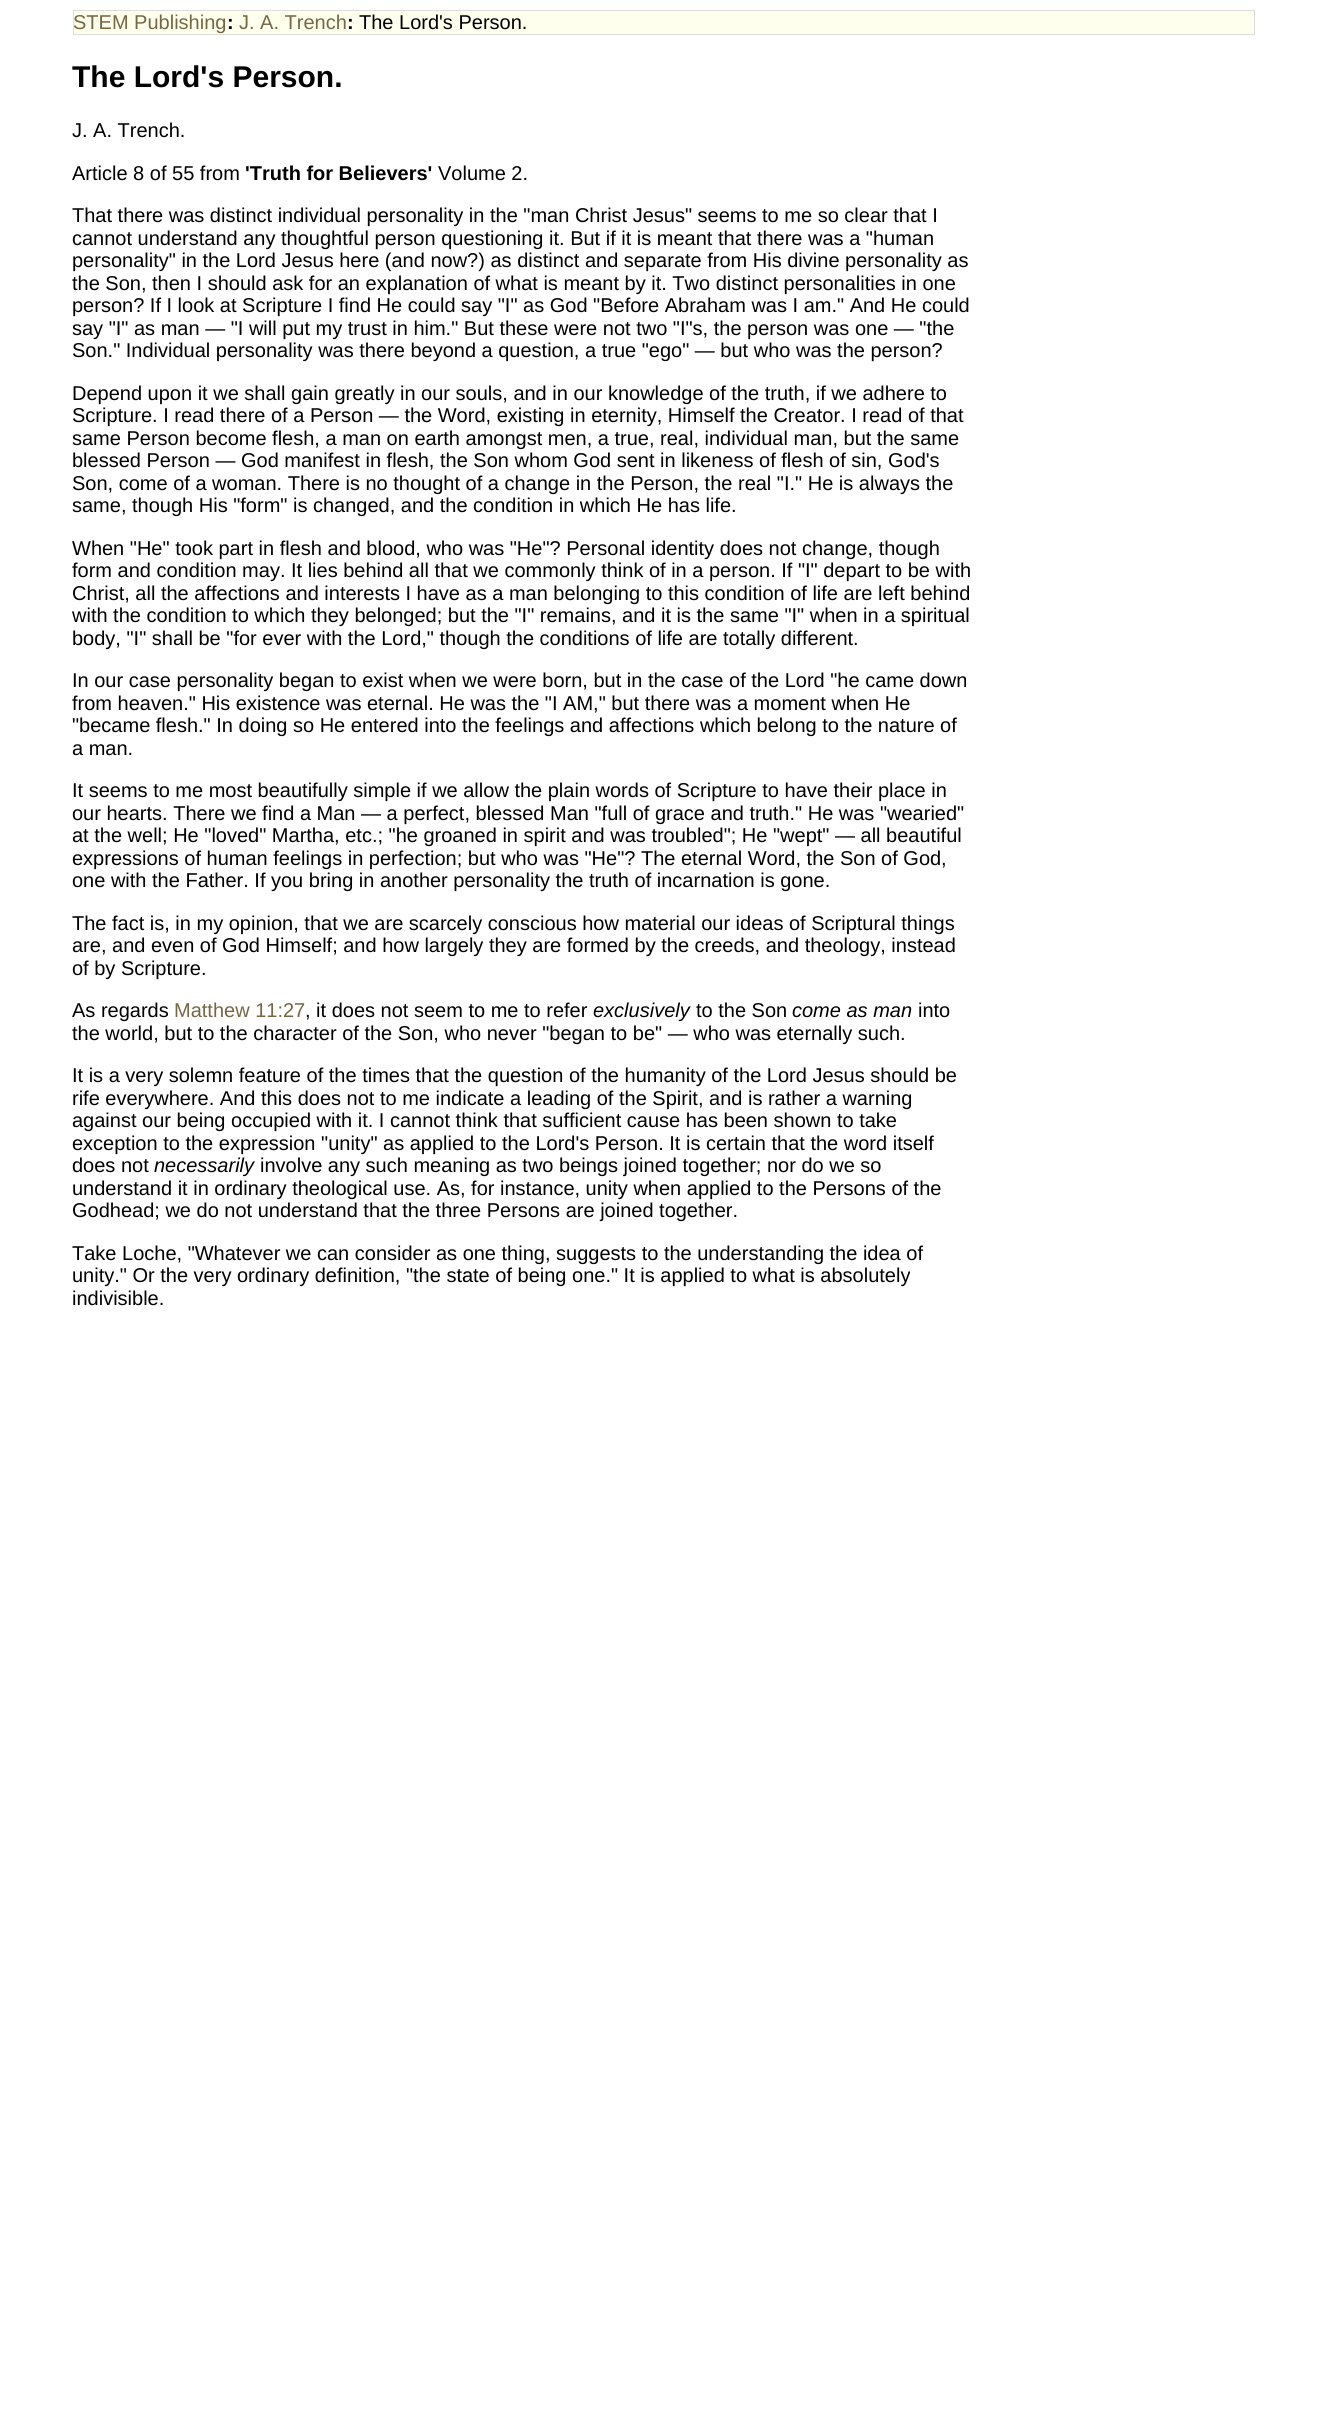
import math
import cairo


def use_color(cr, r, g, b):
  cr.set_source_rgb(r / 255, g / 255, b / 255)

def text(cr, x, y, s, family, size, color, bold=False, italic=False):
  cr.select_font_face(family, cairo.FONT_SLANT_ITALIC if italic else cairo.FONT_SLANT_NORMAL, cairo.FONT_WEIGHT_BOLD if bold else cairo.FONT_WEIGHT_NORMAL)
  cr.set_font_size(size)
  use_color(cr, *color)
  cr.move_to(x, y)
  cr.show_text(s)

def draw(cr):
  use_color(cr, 255, 255, 255)
  cr.paint()
  use_color(cr, 255, 255, 238)
  cr.rectangle(73.5, 10.5, 1181, 24)
  cr.fill_preserve()
  use_color(cr, 221, 221, 221)
  cr.set_line_width(1)
  cr.stroke()
  text(cr, 73, 29, "STEM Publishing", "Liberation Sans", 20, (119, 102, 68))
  text(cr, 227, 29, ":", "Liberation Sans", 20, (0, 0, 0), bold=True)
  text(cr, 239, 29, "J. A. Trench", "Liberation Sans", 20, (119, 102, 68))
  text(cr, 347, 29, ":", "Liberation Sans", 20, (0, 0, 0), bold=True)
  text(cr, 359, 29, "The Lord's Person.", "Liberation Sans", 20, (0, 0, 0))
  text(cr, 72, 87, "The Lord's Person.", "Liberation Sans", 30, (0, 0, 0), bold=True)
  text(cr, 72, 137, "J. A. Trench.", "Liberation Sans", 20, (0, 0, 0))
  text(cr, 72, 180, "Article 8 of 55 from", "Liberation Sans", 20, (0, 0, 0))
  text(cr, 245, 180, "'Truth for Believers'", "Liberation Sans", 20, (0, 0, 0), bold=True)
  text(cr, 438, 180, "Volume 2.", "Liberation Sans", 20, (0, 0, 0))
  text(cr, 72, 222, "That there was distinct individual personality in the \"man Christ Jesus\" seems to me so clear that I", "Liberation Sans", 20, (0, 0, 0))
  text(cr, 72, 245, "cannot understand any thoughtful person questioning it. But if it is meant that there was a \"human", "Liberation Sans", 20, (0, 0, 0))
  text(cr, 72, 267, "personality\" in the Lord Jesus here (and now?) as distinct and separate from His divine personality as", "Liberation Sans", 20, (0, 0, 0))
  text(cr, 72, 290, "the Son, then I should ask for an explanation of what is meant by it. Two distinct personalities in one", "Liberation Sans", 20, (0, 0, 0))
  text(cr, 72, 312, "person? If I look at Scripture I find He could say \"I\" as God \"Before Abraham was I am.\" And He could", "Liberation Sans", 20, (0, 0, 0))
  text(cr, 72, 335, "say \"I\" as man — \"I will put my trust in him.\" But these were not two \"I\"s, the person was one — \"the", "Liberation Sans", 20, (0, 0, 0))
  text(cr, 72, 357, "Son.\" Individual personality was there beyond a question, a true \"ego\" — but who was the person?", "Liberation Sans", 20, (0, 0, 0))
  text(cr, 72, 400, "Depend upon it we shall gain greatly in our souls, and in our knowledge of the truth, if we adhere to", "Liberation Sans", 20, (0, 0, 0))
  text(cr, 72, 422, "Scripture. I read there of a Person — the Word, existing in eternity, Himself the Creator. I read of that", "Liberation Sans", 20, (0, 0, 0))
  text(cr, 72, 445, "same Person become flesh, a man on earth amongst men, a true, real, individual man, but the same", "Liberation Sans", 20, (0, 0, 0))
  text(cr, 72, 467, "blessed Person — God manifest in flesh, the Son whom God sent in likeness of flesh of sin, God's", "Liberation Sans", 20, (0, 0, 0))
  text(cr, 72, 490, "Son, come of a woman. There is no thought of a change in the Person, the real \"I.\" He is always the", "Liberation Sans", 20, (0, 0, 0))
  text(cr, 72, 512, "same, though His \"form\" is changed, and the condition in which He has life.", "Liberation Sans", 20, (0, 0, 0))
  text(cr, 72, 555, "When \"He\" took part in flesh and blood, who was \"He\"? Personal identity does not change, though", "Liberation Sans", 20, (0, 0, 0))
  text(cr, 72, 577, "form and condition may. It lies behind all that we commonly think of in a person. If \"I\" depart to be with", "Liberation Sans", 20, (0, 0, 0))
  text(cr, 72, 600, "Christ, all the affections and interests I have as a man belonging to this condition of life are left behind", "Liberation Sans", 20, (0, 0, 0))
  text(cr, 72, 622, "with the condition to which they belonged; but the \"I\" remains, and it is the same \"I\" when in a spiritual", "Liberation Sans", 20, (0, 0, 0))
  text(cr, 72, 645, "body, \"I\" shall be \"for ever with the Lord,\" though the conditions of life are totally different.", "Liberation Sans", 20, (0, 0, 0))
  text(cr, 72, 687, "In our case personality began to exist when we were born, but in the case of the Lord \"he came down", "Liberation Sans", 20, (0, 0, 0))
  text(cr, 72, 710, "from heaven.\" His existence was eternal. He was the \"I AM,\" but there was a moment when He", "Liberation Sans", 20, (0, 0, 0))
  text(cr, 72, 732, "\"became flesh.\" In doing so He entered into the feelings and affections which belong to the nature of", "Liberation Sans", 20, (0, 0, 0))
  text(cr, 72, 755, "a man.", "Liberation Sans", 20, (0, 0, 0))
  text(cr, 72, 797, "It seems to me most beautifully simple if we allow the plain words of Scripture to have their place in", "Liberation Sans", 20, (0, 0, 0))
  text(cr, 72, 820, "our hearts. There we find a Man — a perfect, blessed Man \"full of grace and truth.\" He was \"wearied\"", "Liberation Sans", 20, (0, 0, 0))
  text(cr, 72, 842, "at the well; He \"loved\" Martha, etc.; \"he groaned in spirit and was troubled\"; He \"wept\" — all beautiful", "Liberation Sans", 20, (0, 0, 0))
  text(cr, 72, 865, "expressions of human feelings in perfection; but who was \"He\"? The eternal Word, the Son of God,", "Liberation Sans", 20, (0, 0, 0))
  text(cr, 72, 887, "one with the Father. If you bring in another personality the truth of incarnation is gone.", "Liberation Sans", 20, (0, 0, 0))
  text(cr, 72, 930, "The fact is, in my opinion, that we are scarcely conscious how material our ideas of Scriptural things", "Liberation Sans", 20, (0, 0, 0))
  text(cr, 72, 952, "are, and even of God Himself; and how largely they are formed by the creeds, and theology, instead", "Liberation Sans", 20, (0, 0, 0))
  text(cr, 72, 975, "of by Scripture.", "Liberation Sans", 20, (0, 0, 0))
  text(cr, 72, 1017, "As regards", "Liberation Sans", 20, (0, 0, 0))
  text(cr, 174, 1017, "Matthew 11:27", "Liberation Sans", 20, (119, 102, 68))
  text(cr, 305, 1017, ", it does not seem to me to refer", "Liberation Sans", 20, (0, 0, 0))
  text(cr, 593, 1017, "exclusively", "Liberation Sans", 20, (0, 0, 0), italic=True)
  text(cr, 696, 1017, "to the Son", "Liberation Sans", 20, (0, 0, 0))
  text(cr, 792, 1017, "come as man", "Liberation Sans", 20, (0, 0, 0), italic=True)
  text(cr, 918, 1017, "into", "Liberation Sans", 20, (0, 0, 0))
  text(cr, 72, 1040, "the world, but to the character of the Son, who never \"began to be\" — who was eternally such.", "Liberation Sans", 20, (0, 0, 0))
  text(cr, 72, 1082, "It is a very solemn feature of the times that the question of the humanity of the Lord Jesus should be", "Liberation Sans", 20, (0, 0, 0))
  text(cr, 72, 1105, "rife everywhere. And this does not to me indicate a leading of the Spirit, and is rather a warning", "Liberation Sans", 20, (0, 0, 0))
  text(cr, 72, 1127, "against our being occupied with it. I cannot think that sufficient cause has been shown to take", "Liberation Sans", 20, (0, 0, 0))
  text(cr, 72, 1150, "exception to the expression \"unity\" as applied to the Lord's Person. It is certain that the word itself", "Liberation Sans", 20, (0, 0, 0))
  text(cr, 72, 1172, "does not", "Liberation Sans", 20, (0, 0, 0))
  text(cr, 154, 1172, "necessarily", "Liberation Sans", 20, (0, 0, 0), italic=True)
  text(cr, 260, 1172, "involve any such meaning as two beings joined together; nor do we so", "Liberation Sans", 20, (0, 0, 0))
  text(cr, 72, 1195, "understand it in ordinary theological use. As, for instance, unity when applied to the Persons of the", "Liberation Sans", 20, (0, 0, 0))
  text(cr, 72, 1217, "Godhead; we do not understand that the three Persons are joined together.", "Liberation Sans", 20, (0, 0, 0))
  text(cr, 72, 1260, "Take Loche, \"Whatever we can consider as one thing, suggests to the understanding the idea of", "Liberation Sans", 20, (0, 0, 0))
  text(cr, 72, 1282, "unity.\" Or the very ordinary definition, \"the state of being one.\" It is applied to what is absolutely", "Liberation Sans", 20, (0, 0, 0))
  text(cr, 72, 1305, "indivisible.", "Liberation Sans", 20, (0, 0, 0))


surface = cairo.ImageSurface(cairo.FORMAT_RGB24, 1323, 2410)
cr = cairo.Context(surface)
options = cairo.FontOptions()
options.set_hint_metrics(cairo.HINT_METRICS_OFF)
options.set_hint_style(cairo.HINT_STYLE_NONE)
cr.set_font_options(options)
cr.set_miter_limit(4)
draw(cr)
surface.write_to_png("out.png")
